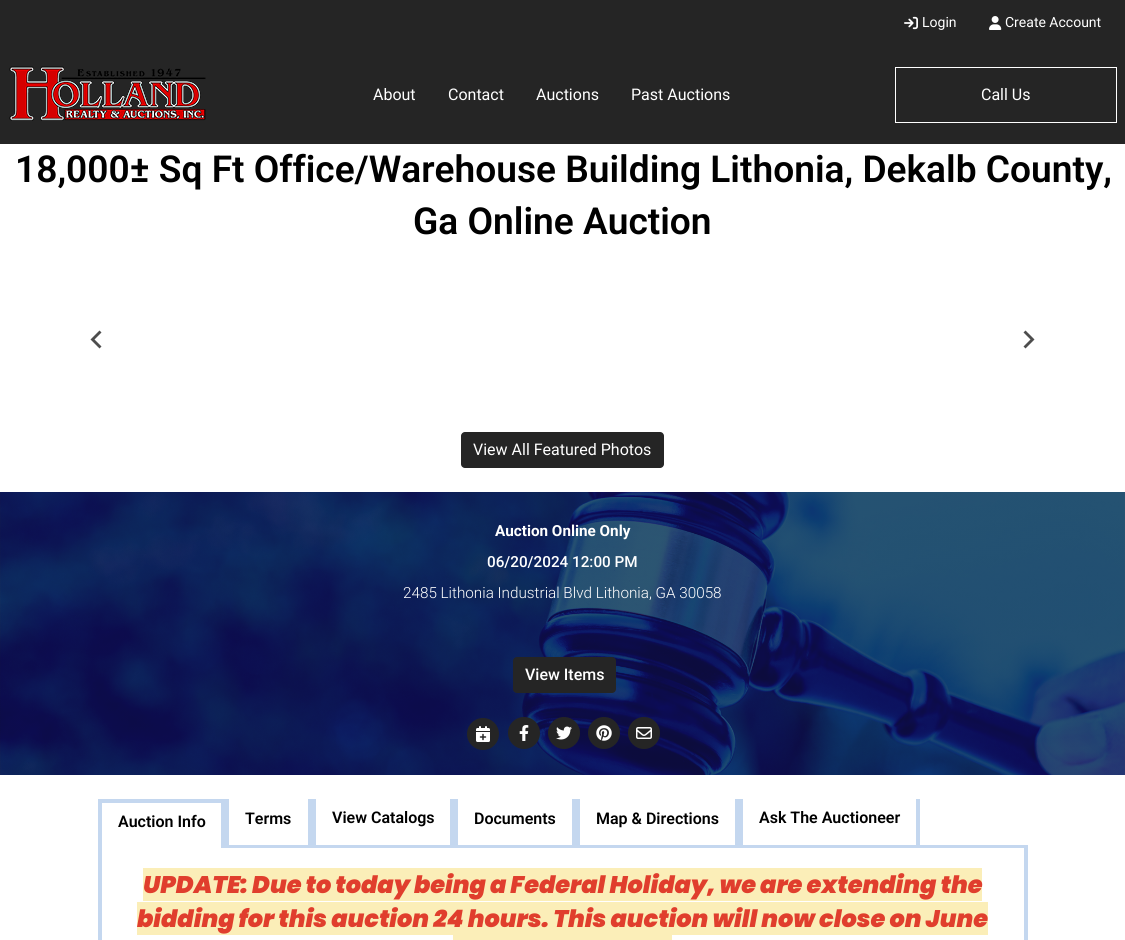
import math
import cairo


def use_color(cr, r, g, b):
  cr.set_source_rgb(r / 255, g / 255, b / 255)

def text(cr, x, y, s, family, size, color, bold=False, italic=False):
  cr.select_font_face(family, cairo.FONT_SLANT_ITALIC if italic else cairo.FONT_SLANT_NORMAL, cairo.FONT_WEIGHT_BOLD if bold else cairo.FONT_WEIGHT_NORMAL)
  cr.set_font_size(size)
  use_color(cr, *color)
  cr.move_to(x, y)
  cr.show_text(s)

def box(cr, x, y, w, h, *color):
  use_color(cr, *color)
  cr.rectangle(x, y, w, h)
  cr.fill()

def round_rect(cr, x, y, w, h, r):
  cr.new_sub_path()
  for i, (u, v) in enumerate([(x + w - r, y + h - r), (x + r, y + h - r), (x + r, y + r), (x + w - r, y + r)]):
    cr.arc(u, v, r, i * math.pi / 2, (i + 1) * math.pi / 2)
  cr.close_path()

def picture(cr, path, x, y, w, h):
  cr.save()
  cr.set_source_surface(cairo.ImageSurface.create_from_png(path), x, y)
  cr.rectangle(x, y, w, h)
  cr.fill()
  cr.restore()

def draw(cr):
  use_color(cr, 255, 255, 255)
  cr.paint()
  box(cr, 0, 0, 1125, 144, 37, 37, 37)
  picture(cr, "img_01.png", 904, 16, 14, 14)
  picture(cr, "img_02.png", 989, 16, 13, 14)
  picture(cr, "img_03.png", 9, 66, 197, 55)
  cr.rectangle(895.5, 67.5, 221, 55)
  use_color(cr, 255, 255, 255)
  cr.set_line_width(1)
  cr.stroke()
  use_color(cr, 77, 77, 77)
  cr.new_path()
  cr.move_to(99.5, 330.5)
  cr.line_to(101.5, 332.5)
  cr.line_to(94.5, 339.5)
  cr.line_to(101.5, 346.5)
  cr.line_to(99.5, 348.5)
  cr.line_to(90.5, 339.5)
  cr.close_path()
  cr.fill()
  cr.new_path()
  cr.move_to(1025.5, 330.5)
  cr.line_to(1023.5, 332.5)
  cr.line_to(1030.5, 339.5)
  cr.line_to(1023.5, 346.5)
  cr.line_to(1025.5, 348.5)
  cr.line_to(1034.5, 339.5)
  cr.close_path()
  cr.fill()
  use_color(cr, 37, 37, 37)
  round_rect(cr, 461, 432, 203, 36, 4)
  cr.fill()
  picture(cr, "img_04.png", 0, 492, 1125, 283)
  round_rect(cr, 513, 657, 103, 36, 4)
  cr.fill()
  picture(cr, "img_05.png", 467, 718, 32, 32)
  picture(cr, "img_06.png", 476, 726, 14, 16)
  picture(cr, "img_07.png", 508, 717, 32, 32)
  picture(cr, "img_08.png", 519, 725, 10, 16)
  picture(cr, "img_09.png", 548, 717, 32, 32)
  picture(cr, "img_10.png", 556, 726, 16, 14)
  picture(cr, "img_11.png", 588, 717, 32, 32)
  picture(cr, "img_12.png", 596, 725, 16, 16)
  picture(cr, "img_13.png", 628, 717, 32, 32)
  picture(cr, "img_14.png", 636, 727, 16, 12)
  box(cr, 98, 799, 127, 4, 196, 215, 239)
  box(cr, 221, 799, 4, 50, 196, 215, 239)
  box(cr, 98, 799, 4, 141, 196, 215, 239)
  box(cr, 308, 799, 4, 50, 196, 215, 239)
  box(cr, 225, 845, 87, 3, 196, 215, 239)
  box(cr, 225, 799, 4, 50, 196, 215, 239)
  box(cr, 450, 799, 4, 50, 196, 215, 239)
  box(cr, 312, 845, 142, 3, 196, 215, 239)
  box(cr, 312, 799, 4, 50, 196, 215, 239)
  box(cr, 572, 799, 4, 50, 196, 215, 239)
  box(cr, 454, 845, 122, 3, 196, 215, 239)
  box(cr, 454, 799, 4, 50, 196, 215, 239)
  box(cr, 735, 799, 4, 50, 196, 215, 239)
  box(cr, 576, 845, 163, 3, 196, 215, 239)
  box(cr, 576, 799, 4, 50, 196, 215, 239)
  box(cr, 916, 799, 4, 50, 196, 215, 239)
  box(cr, 739, 845, 289, 3, 196, 215, 239)
  box(cr, 739, 799, 4, 50, 196, 215, 239)
  box(cr, 221, 848, 699, 1, 255, 255, 255)
  box(cr, 1024, 848, 4, 92, 196, 215, 239)
  box(cr, 143, 868, 839, 33, 251, 238, 184)
  box(cr, 137, 902, 851, 33, 251, 238, 184)
  box(cr, 453, 935, 219, 5, 251, 238, 184)
  text(cr, 922, 27, "Login", "Roboto", 14, (255, 255, 255))
  text(cr, 1005, 27, "Create Account", "Roboto", 14, (255, 255, 255))
  text(cr, 373, 100, "About", "Roboto", 16, (255, 255, 255))
  text(cr, 448, 100, "Contact", "Roboto", 16, (255, 255, 255))
  text(cr, 536, 100, "Auctions", "Roboto", 16, (255, 255, 255))
  text(cr, 631, 100, "Past Auctions", "Roboto", 16, (255, 255, 255))
  text(cr, 981, 100, "Call Us", "Roboto", 16, (255, 255, 255))
  text(cr, 15, 182, "18,000± Sq Ft Office/Warehouse Building Lithonia, Dekalb County,", "Roboto SemiBold", 37.1, (0, 0, 0))
  text(cr, 413, 234, "Ga Online Auction", "Roboto SemiBold", 37.1, (0, 0, 0))
  text(cr, 473, 455, "View All Featured Photos", "Roboto", 16, (255, 255, 255))
  text(cr, 495, 536, "Auction Online Only", "Roboto", 15.25, (255, 255, 255), bold=True)
  text(cr, 487, 567, "06/20/2024 12:00 PM", "Roboto Medium", 15.25, (255, 255, 255))
  text(cr, 403, 598, "2485 Lithonia Industrial Blvd Lithonia, GA 30058", "Roboto Light", 15.25, (255, 255, 255))
  text(cr, 525, 680, "View Items", "Roboto Medium", 16, (255, 255, 255))
  text(cr, 118, 827, "Auction Info", "Roboto SemiBold", 16, (0, 0, 0))
  text(cr, 245, 824, "Terms", "Roboto SemiBold", 16, (0, 0, 0))
  text(cr, 332, 823, "View Catalogs", "Roboto SemiBold", 16, (0, 0, 0))
  text(cr, 474, 824, "Documents", "Roboto SemiBold", 16, (0, 0, 0))
  text(cr, 596, 824, "Map & Directions", "Roboto SemiBold", 16, (0, 0, 0))
  text(cr, 759, 823, "Ask The Auctioneer", "Roboto SemiBold", 16, (0, 0, 0))
  text(cr, 143, 893, "UPDATE: Due to today being a Federal Holiday, we are extending the", "Poppins Black", 24, (224, 62, 45), italic=True)
  text(cr, 137, 927, "bidding for this auction 24 hours. This auction will now close on June", "Poppins Black", 24, (224, 62, 45), italic=True)


surface = cairo.ImageSurface(cairo.FORMAT_RGB24, 1125, 940)
cr = cairo.Context(surface)
options = cairo.FontOptions()
options.set_hint_metrics(cairo.HINT_METRICS_OFF)
options.set_hint_style(cairo.HINT_STYLE_NONE)
cr.set_font_options(options)
cr.set_miter_limit(4)
draw(cr)
surface.write_to_png("out.png")
